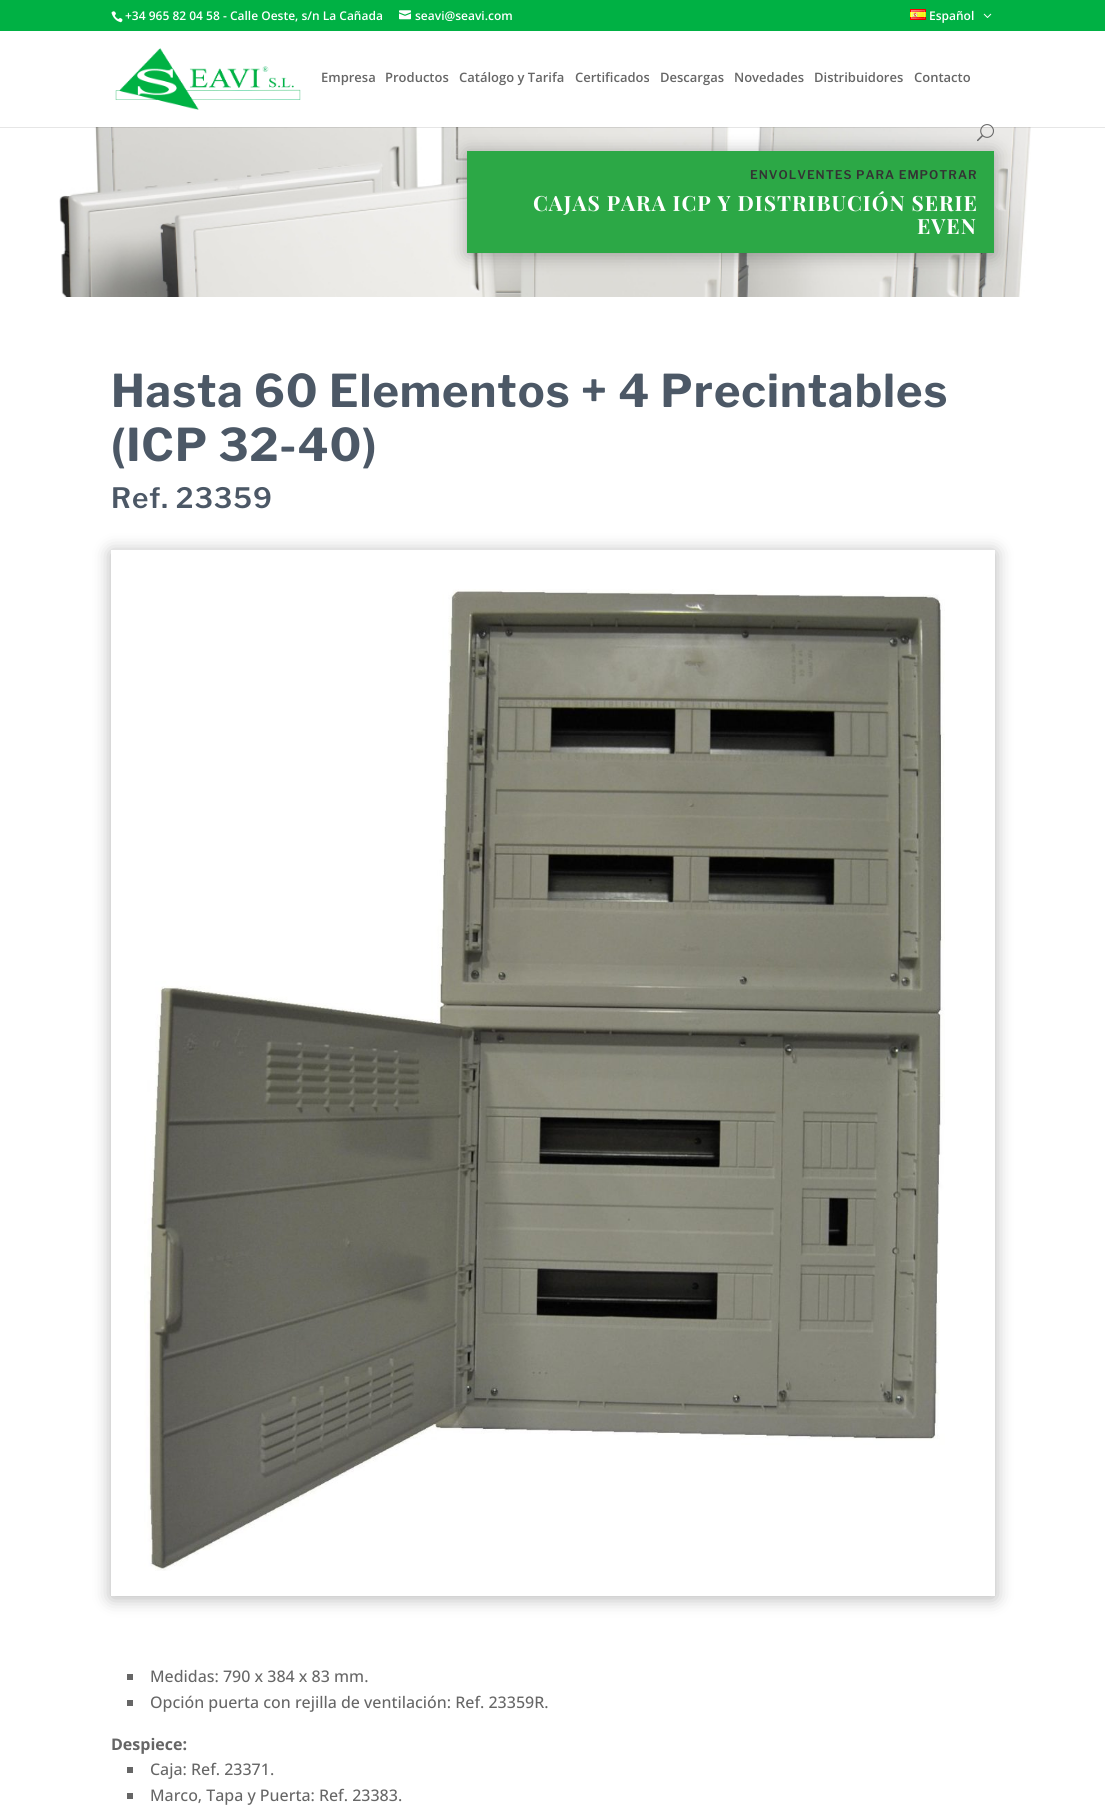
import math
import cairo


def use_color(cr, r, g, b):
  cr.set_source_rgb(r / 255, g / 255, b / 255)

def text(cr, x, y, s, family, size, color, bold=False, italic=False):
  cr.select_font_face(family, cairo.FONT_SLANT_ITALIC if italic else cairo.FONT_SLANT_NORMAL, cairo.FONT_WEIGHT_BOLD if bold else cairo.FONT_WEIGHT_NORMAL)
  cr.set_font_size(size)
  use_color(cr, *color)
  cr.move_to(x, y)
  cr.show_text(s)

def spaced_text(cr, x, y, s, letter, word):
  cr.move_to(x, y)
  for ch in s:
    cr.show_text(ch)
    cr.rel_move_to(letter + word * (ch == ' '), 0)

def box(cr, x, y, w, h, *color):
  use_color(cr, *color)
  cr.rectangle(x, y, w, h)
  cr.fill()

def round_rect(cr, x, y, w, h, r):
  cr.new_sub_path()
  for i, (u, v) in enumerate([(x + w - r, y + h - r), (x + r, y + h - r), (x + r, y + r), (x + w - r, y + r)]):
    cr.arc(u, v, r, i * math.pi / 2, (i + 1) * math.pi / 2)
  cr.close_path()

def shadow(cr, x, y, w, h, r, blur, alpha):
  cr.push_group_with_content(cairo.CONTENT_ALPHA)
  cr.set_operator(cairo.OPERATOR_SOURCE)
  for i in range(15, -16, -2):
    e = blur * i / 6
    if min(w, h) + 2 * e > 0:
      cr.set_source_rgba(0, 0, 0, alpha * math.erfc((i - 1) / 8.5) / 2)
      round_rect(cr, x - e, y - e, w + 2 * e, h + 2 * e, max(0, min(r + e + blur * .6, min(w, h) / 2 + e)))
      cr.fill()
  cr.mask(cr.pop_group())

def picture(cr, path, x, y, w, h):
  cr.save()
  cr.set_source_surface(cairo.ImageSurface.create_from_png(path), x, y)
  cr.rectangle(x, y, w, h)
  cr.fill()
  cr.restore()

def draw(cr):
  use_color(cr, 255, 255, 255)
  cr.paint()
  box(cr, 0, 0, 1105, 31, 0, 177, 68)
  picture(cr, "img_01.png", 111, 11, 12, 12)
  picture(cr, "img_02.png", 399, 10, 12, 10)
  picture(cr, "img_03.png", 910, 9, 16, 11)
  picture(cr, "img_04.png", 983, 13, 9, 5)
  picture(cr, "img_07.png", 59, 127, 972, 170)
  use_color(cr, 0, 0, 0)
  shadow(cr, 467, 153, 527, 102, 0, 9, 0.3)
  cr.set_source_rgba(0, 0, 0, 0.1)
  cr.rectangle(0, 127, 1105, 1)
  cr.fill()
  picture(cr, "img_05.png", 115, 48, 186, 62)
  picture(cr, "img_06.png", 977, 124, 17, 18)
  box(cr, 467, 151, 527, 102, 44, 168, 70)
  cr.save()
  cr.set_fill_rule(cairo.FILL_RULE_EVEN_ODD)
  cr.new_path()
  cr.move_to(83, 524)
  cr.line_to(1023, 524)
  cr.line_to(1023, 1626)
  cr.line_to(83, 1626)
  cr.close_path()
  cr.move_to(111, 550)
  cr.line_to(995, 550)
  cr.line_to(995, 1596)
  cr.line_to(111, 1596)
  cr.close_path()
  cr.clip()
  use_color(cr, 0, 0, 0)
  shadow(cr, 111, 552, 884, 1046, 0, 9, 0.3)
  cr.restore()
  picture(cr, "img_08.png", 144, 589, 801, 982)
  box(cr, 127, 1674, 6, 6, 102, 102, 102)
  box(cr, 127, 1700, 6, 6, 102, 102, 102)
  box(cr, 127, 1767, 6, 6, 102, 102, 102)
  box(cr, 127, 1793, 6, 6, 102, 102, 102)
  text(cr, 125, 20, "+34 965 82 04 58 - Calle Oeste, s/n La Cañada", "Open Sans SemiBold", 12, (255, 255, 255))
  text(cr, 415, 20, "seavi@seavi.com", "Open Sans SemiBold", 12, (255, 255, 255))
  text(cr, 929, 20, "Español", "Open Sans SemiBold", 12, (255, 255, 255))
  text(cr, 321, 82, "Empresa", "Open Sans SemiBold", 13, (102, 102, 102))
  text(cr, 385, 82, "Productos", "Open Sans SemiBold", 13, (102, 102, 102))
  text(cr, 459, 82, "Catálogo y Tarifa", "Open Sans SemiBold", 13, (102, 102, 102))
  text(cr, 575, 82, "Certificados", "Open Sans SemiBold", 13, (102, 102, 102))
  text(cr, 660, 82, "Descargas", "Open Sans SemiBold", 13, (102, 102, 102))
  text(cr, 734, 82, "Novedades", "Open Sans SemiBold", 13, (102, 102, 102))
  text(cr, 814, 82, "Distribuidores", "Open Sans SemiBold", 13, (102, 102, 102))
  text(cr, 914, 82, "Contacto", "Open Sans SemiBold", 13, (102, 102, 102))
  cr.select_font_face("Libre Franklin Thin")
  cr.set_font_size(12)
  use_color(cr, 51, 51, 51)
  spaced_text(cr, 750, 179, "ENVOLVENTES PARA EMPOTRAR", 1, 0)
  cr.select_font_face("Playfair Display", cairo.FONT_SLANT_NORMAL, cairo.FONT_WEIGHT_BOLD)
  cr.set_font_size(21)
  use_color(cr, 255, 255, 255)
  spaced_text(cr, 533, 211, "CAJAS PARA ICP Y DISTRIBUCIÓN SERIE", 1, 0)
  spaced_text(cr, 917, 234, "EVEN", 1, 0)
  cr.select_font_face("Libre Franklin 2 Thin")
  cr.set_font_size(45)
  use_color(cr, 76, 88, 102)
  spaced_text(cr, 111, 407, "Hasta 60 Elementos + 4 Precintables", 1, 0)
  spaced_text(cr, 111, 461, "(ICP 32-40)", 1, 0)
  cr.select_font_face("Libre Franklin Thin")
  cr.set_font_size(28)
  spaced_text(cr, 111, 508, "Ref. 23359", 1, 0)
  text(cr, 150, 1682, "Medidas: 790 x 384 x 83 mm.", "Open Sans Medium", 16, (102, 102, 102))
  text(cr, 150, 1708, "Opción puerta con rejilla de ventilación: Ref. 23359R.", "Open Sans Medium", 16, (102, 102, 102))
  text(cr, 111, 1750, "Despiece:", "Open Sans", 16, (102, 102, 102), bold=True)
  text(cr, 150, 1775, "Caja: Ref. 23371.", "Open Sans Medium", 16, (102, 102, 102))
  text(cr, 150, 1801, "Marco, Tapa y Puerta: Ref. 23383.", "Open Sans Medium", 16, (102, 102, 102))


surface = cairo.ImageSurface(cairo.FORMAT_RGB24, 1105, 1818)
cr = cairo.Context(surface)
options = cairo.FontOptions()
options.set_hint_metrics(cairo.HINT_METRICS_OFF)
options.set_hint_style(cairo.HINT_STYLE_NONE)
cr.set_font_options(options)
cr.set_miter_limit(4)
draw(cr)
surface.write_to_png("out.png")
